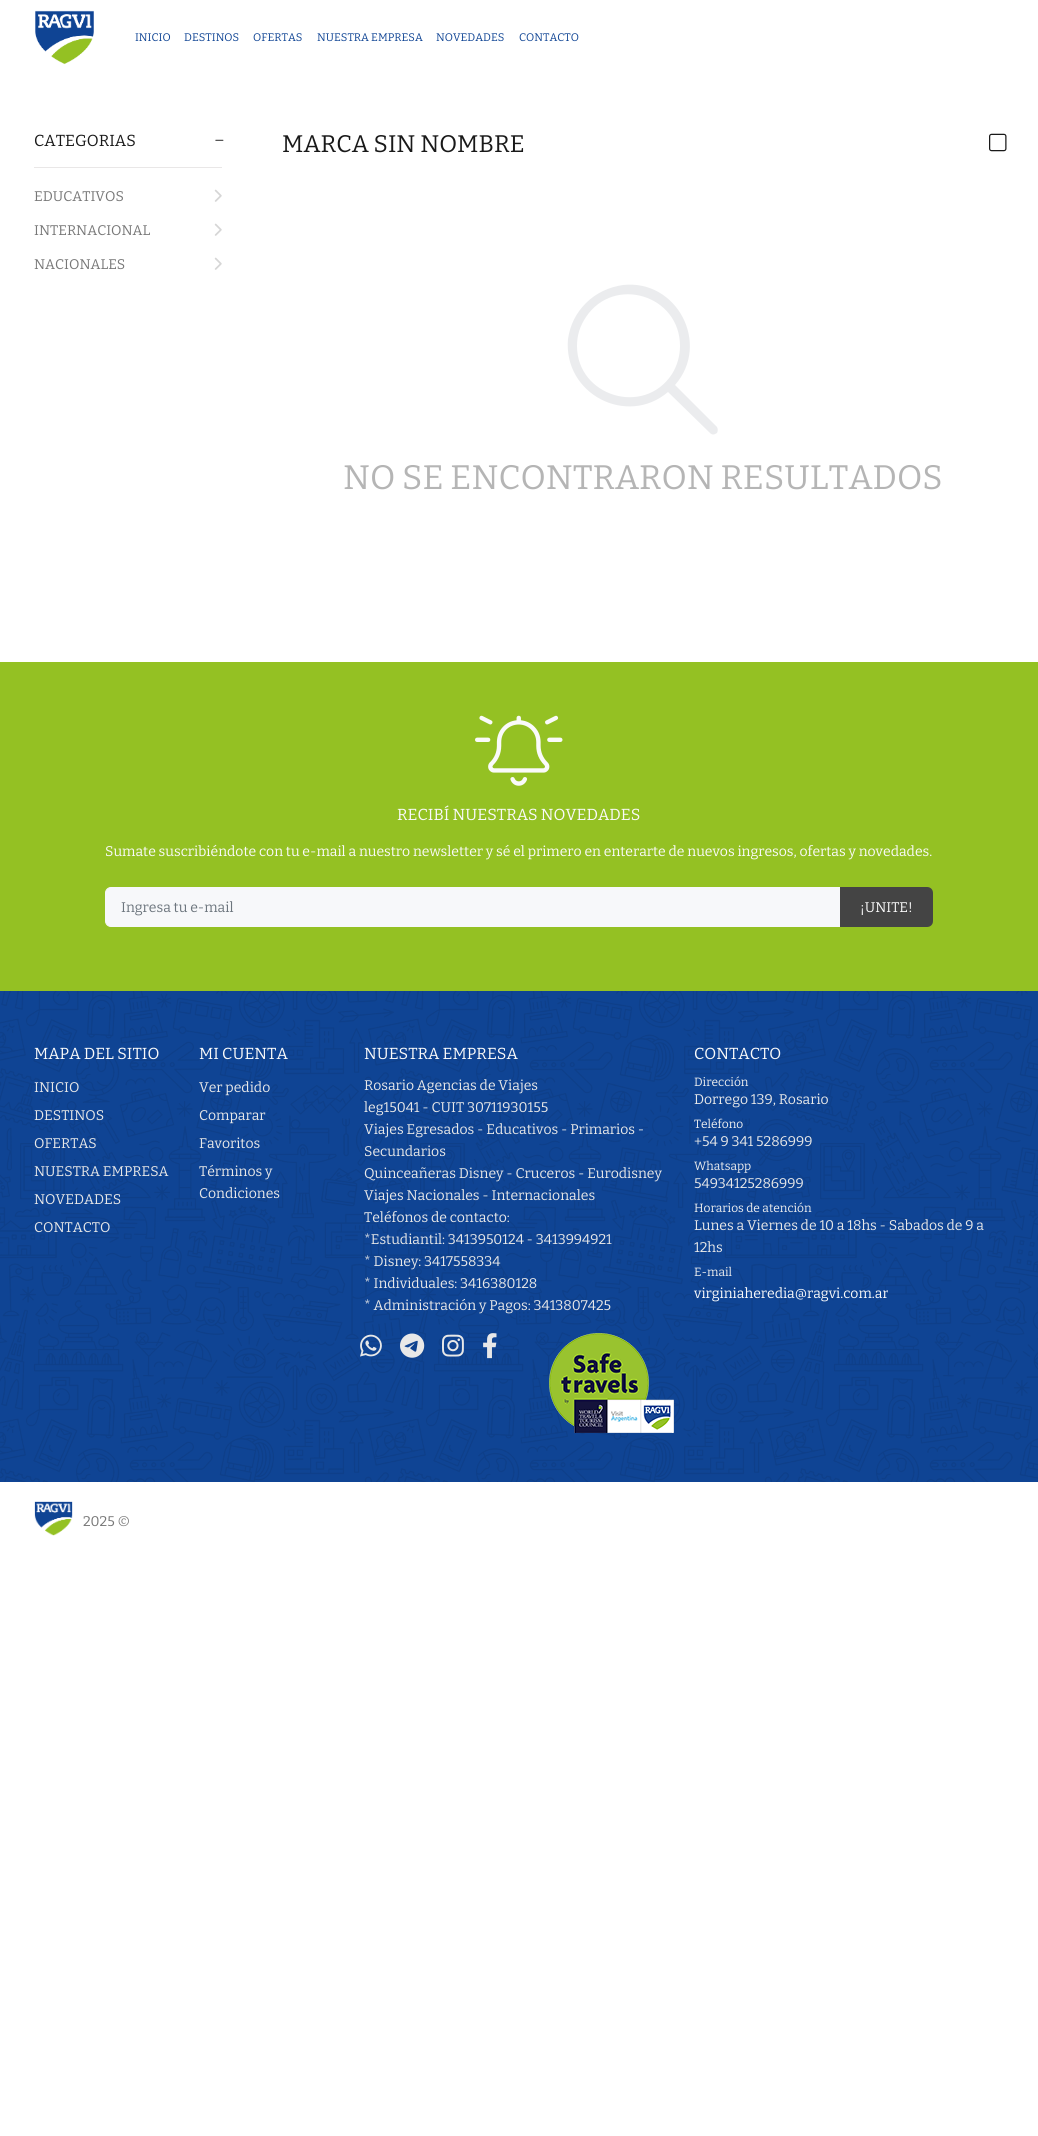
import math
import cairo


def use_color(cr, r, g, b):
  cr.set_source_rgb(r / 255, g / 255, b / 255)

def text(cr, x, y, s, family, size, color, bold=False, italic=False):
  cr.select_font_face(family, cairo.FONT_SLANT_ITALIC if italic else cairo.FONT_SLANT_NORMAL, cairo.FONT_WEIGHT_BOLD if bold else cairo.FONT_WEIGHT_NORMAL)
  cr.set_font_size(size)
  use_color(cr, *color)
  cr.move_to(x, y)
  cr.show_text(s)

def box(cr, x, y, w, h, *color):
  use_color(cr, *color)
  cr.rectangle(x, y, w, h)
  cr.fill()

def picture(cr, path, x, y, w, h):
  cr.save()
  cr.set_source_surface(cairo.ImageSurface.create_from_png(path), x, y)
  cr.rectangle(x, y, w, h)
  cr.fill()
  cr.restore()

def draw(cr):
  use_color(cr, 255, 255, 255)
  cr.paint()
  picture(cr, "img_01.png", 35, 10, 59, 55)
  box(cr, 34, 167, 188, 1, 233, 231, 231)
  picture(cr, "img_02.png", 215, 139, 9, 2)
  picture(cr, "img_03.png", 214, 189, 8, 13)
  picture(cr, "img_03.png", 214, 223, 8, 13)
  picture(cr, "img_03.png", 214, 257, 8, 13)
  picture(cr, "img_04.png", 989, 133, 18, 19)
  use_color(cr, 235, 236, 238)
  cr.new_path()
  cr.move_to(680, 346)
  cr.curve_to(680, 295, 614, 275, 586, 317)
  cr.curve_to(580, 326, 577, 335, 577, 346)
  cr.curve_to(577, 396, 644, 417, 672, 374)
  cr.curve_to(677, 366, 680, 356, 680, 346)
  cr.close_path()
  cr.move_to(668, 392)
  cr.curve_to(627, 427, 563, 394, 568, 339)
  cr.curve_to(570, 325, 576, 313, 586, 303)
  cr.curve_to(596, 293, 609, 287, 623, 285)
  cr.curve_to(677, 279, 711, 344, 675, 385)
  cr.line_to(717, 427)
  cr.curve_to(718, 429, 718, 431, 717, 433)
  cr.curve_to(714, 435, 712, 435, 710, 433)
  cr.close_path()
  cr.fill()
  box(cr, 0, 662, 1038, 329, 148, 193, 35)
  picture(cr, "img_05.png", 475, 715, 88, 71)
  use_color(cr, 247, 248, 250)
  cr.new_path()
  cr.move_to(111, 887.5)
  cr.line_to(839.5, 887.5)
  cr.line_to(839.5, 926.5)
  cr.line_to(111, 926.5)
  cr.curve_to(108, 926.5, 105.5, 924, 105.5, 921)
  cr.line_to(105.5, 893)
  cr.curve_to(105.5, 890, 108, 887.5, 111, 887.5)
  cr.close_path()
  cr.fill_preserve()
  cr.set_line_width(1)
  cr.stroke()
  use_color(cr, 68, 68, 68)
  cr.new_path()
  cr.move_to(840, 887)
  cr.line_to(927, 887)
  cr.curve_to(930.5, 887, 933, 889.5, 933, 893)
  cr.line_to(933, 921)
  cr.curve_to(933, 924.5, 930.5, 927, 927, 927)
  cr.line_to(840, 927)
  cr.close_path()
  cr.fill()
  box(cr, 0, 991, 1038, 491, 15, 68, 148)
  picture(cr, "img_06.png", 0, 991, 1038, 491)
  picture(cr, "img_07.png", 360, 1334, 22, 23)
  picture(cr, "img_08.png", 400, 1333, 25, 25)
  picture(cr, "img_09.png", 442, 1334, 22, 23)
  picture(cr, "img_10.png", 483, 1333, 14, 26)
  picture(cr, "img_11.png", 549, 1333, 125, 100)
  picture(cr, "img_12.png", 34, 1501, 39, 35)
  text(cr, 135, 41, "INICIO", "Bitter Thin", 11, (15, 68, 148))
  text(cr, 184, 41, "DESTINOS", "Bitter Thin", 11, (15, 68, 148))
  text(cr, 253, 41, "OFERTAS", "Bitter Thin", 11, (15, 68, 148))
  text(cr, 317, 41, "NUESTRA EMPRESA", "Bitter Thin", 11, (15, 68, 148))
  text(cr, 436, 41, "NOVEDADES", "Bitter Thin", 11, (15, 68, 148))
  text(cr, 519, 41, "CONTACTO", "Bitter Thin", 11, (15, 68, 148))
  text(cr, 34, 146, "CATEGORIAS", "Bitter Thin", 16, (25, 25, 25))
  text(cr, 34, 201, "EDUCATIVOS", "Bitter Thin", 14, (119, 119, 119))
  text(cr, 34, 235, "INTERNACIONAL", "Bitter Thin", 14, (119, 119, 119))
  text(cr, 34, 269, "NACIONALES", "Bitter Thin", 14, (119, 119, 119))
  text(cr, 282, 152, "MARCA SIN NOMBRE", "Bitter Thin", 24, (25, 25, 25))
  text(cr, 343, 489, "NO SE ENCONTRARON RESULTADOS", "Bitter Thin", 34, (181, 181, 181))
  text(cr, 397, 820, "RECIBÍ NUESTRAS NOVEDADES", "Bitter Thin", 16, (250, 250, 250))
  text(cr, 105, 856, "Sumate suscribiéndote con tu e-mail a nuestro newsletter y sé el primero en enterarte de nuevos ingresos, ofertas y novedades.", "Bitter Thin", 14, (250, 250, 250))
  text(cr, 121, 912, "Ingresa tu e-mail", "Bitter Thin", 14, (108, 117, 125))
  text(cr, 860, 912, "¡UNITE!", "Bitter Thin", 14, (250, 250, 250))
  text(cr, 34, 1059, "MAPA DEL SITIO", "Bitter Thin", 16, (250, 250, 250))
  text(cr, 34, 1092, "INICIO", "Bitter Thin", 14, (232, 232, 232))
  text(cr, 34, 1120, "DESTINOS", "Bitter Thin", 14, (232, 232, 232))
  text(cr, 34, 1148, "OFERTAS", "Bitter Thin", 14, (232, 232, 232))
  text(cr, 34, 1176, "NUESTRA EMPRESA", "Bitter Thin", 14, (232, 232, 232))
  text(cr, 34, 1204, "NOVEDADES", "Bitter Thin", 14, (232, 232, 232))
  text(cr, 34, 1232, "CONTACTO", "Bitter Thin", 14, (232, 232, 232))
  text(cr, 199, 1059, "MI CUENTA", "Bitter Thin", 16, (250, 250, 250))
  text(cr, 199, 1092, "Ver pedido", "Bitter Thin", 14, (232, 232, 232))
  text(cr, 199, 1120, "Comparar", "Bitter Thin", 14, (232, 232, 232))
  text(cr, 199, 1148, "Favoritos", "Bitter Thin", 14, (232, 232, 232))
  text(cr, 199, 1176, "Términos y", "Bitter Thin", 14, (232, 232, 232))
  text(cr, 199, 1198, "Condiciones", "Bitter Thin", 14, (232, 232, 232))
  text(cr, 364, 1059, "NUESTRA EMPRESA", "Bitter Thin", 16, (250, 250, 250))
  text(cr, 364, 1090, "Rosario Agencias de Viajes", "Bitter Thin", 14, (232, 232, 232))
  text(cr, 364, 1112, "leg15041 - CUIT 30711930155", "Bitter Thin", 14, (232, 232, 232))
  text(cr, 364, 1134, "Viajes Egresados - Educativos - Primarios -", "Bitter Thin", 14, (232, 232, 232))
  text(cr, 364, 1156, "Secundarios", "Bitter Thin", 14, (232, 232, 232))
  text(cr, 364, 1178, "Quinceañeras Disney - Cruceros - Eurodisney", "Bitter Thin", 14, (232, 232, 232))
  text(cr, 364, 1200, "Viajes Nacionales - Internacionales", "Bitter Thin", 14, (232, 232, 232))
  text(cr, 364, 1222, "Teléfonos de contacto:", "Bitter Thin", 14, (232, 232, 232))
  text(cr, 364, 1244, "*Estudiantil: 3413950124 - 3413994921", "Bitter Thin", 14, (232, 232, 232))
  text(cr, 364, 1266, "* Disney: 3417558334", "Bitter Thin", 14, (232, 232, 232))
  text(cr, 364, 1288, "* Individuales: 3416380128", "Bitter Thin", 14, (232, 232, 232))
  text(cr, 364, 1310, "* Administración y Pagos: 3413807425", "Bitter Thin", 14, (232, 232, 232))
  text(cr, 694, 1059, "CONTACTO", "Bitter Thin", 16, (250, 250, 250))
  text(cr, 694, 1086, "Dirección", "Bitter Thin", 12, (238, 238, 238))
  text(cr, 694, 1104, "Dorrego 139, Rosario", "Bitter Thin", 14, (232, 232, 232))
  text(cr, 694, 1128, "Teléfono", "Bitter Thin", 12, (238, 238, 238))
  text(cr, 694, 1146, "+54 9 341 5286999", "Bitter Thin", 14, (232, 232, 232))
  text(cr, 694, 1170, "Whatsapp", "Bitter Thin", 12, (238, 238, 238))
  text(cr, 694, 1188, "54934125286999", "Bitter Thin", 14, (232, 232, 232))
  text(cr, 694, 1212, "Horarios de atención", "Bitter Thin", 12, (238, 238, 238))
  text(cr, 694, 1230, "Lunes a Viernes de 10 a 18hs - Sabados de 9 a", "Bitter Thin", 14, (232, 232, 232))
  text(cr, 694, 1252, "12hs", "Bitter Thin", 14, (232, 232, 232))
  text(cr, 694, 1276, "E-mail", "Bitter Thin", 12, (238, 238, 238))
  text(cr, 694, 1298, "virginiaheredia@ragvi.com.ar", "Bitter Thin", 14, (250, 250, 250))
  text(cr, 83, 1526, "2025 ©", "Bitter Thin", 14, (119, 119, 119))


surface = cairo.ImageSurface(cairo.FORMAT_RGB24, 1038, 2136)
cr = cairo.Context(surface)
options = cairo.FontOptions()
options.set_hint_metrics(cairo.HINT_METRICS_OFF)
options.set_hint_style(cairo.HINT_STYLE_NONE)
cr.set_font_options(options)
cr.set_miter_limit(4)
draw(cr)
surface.write_to_png("out.png")
